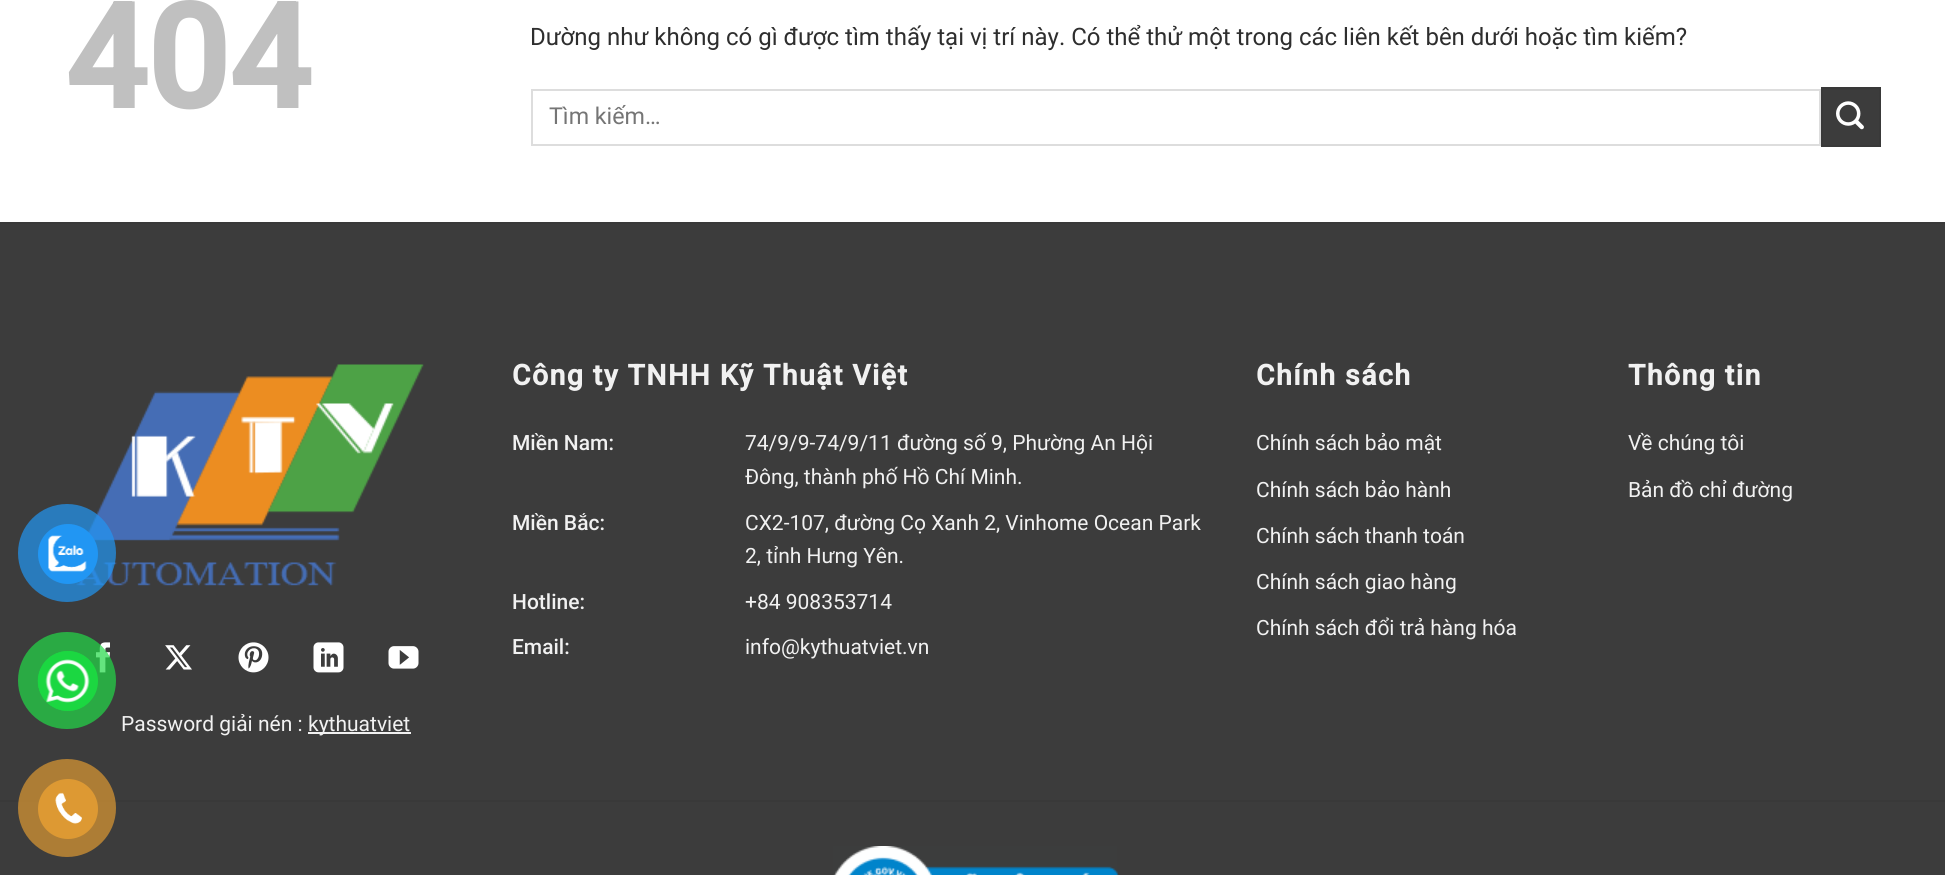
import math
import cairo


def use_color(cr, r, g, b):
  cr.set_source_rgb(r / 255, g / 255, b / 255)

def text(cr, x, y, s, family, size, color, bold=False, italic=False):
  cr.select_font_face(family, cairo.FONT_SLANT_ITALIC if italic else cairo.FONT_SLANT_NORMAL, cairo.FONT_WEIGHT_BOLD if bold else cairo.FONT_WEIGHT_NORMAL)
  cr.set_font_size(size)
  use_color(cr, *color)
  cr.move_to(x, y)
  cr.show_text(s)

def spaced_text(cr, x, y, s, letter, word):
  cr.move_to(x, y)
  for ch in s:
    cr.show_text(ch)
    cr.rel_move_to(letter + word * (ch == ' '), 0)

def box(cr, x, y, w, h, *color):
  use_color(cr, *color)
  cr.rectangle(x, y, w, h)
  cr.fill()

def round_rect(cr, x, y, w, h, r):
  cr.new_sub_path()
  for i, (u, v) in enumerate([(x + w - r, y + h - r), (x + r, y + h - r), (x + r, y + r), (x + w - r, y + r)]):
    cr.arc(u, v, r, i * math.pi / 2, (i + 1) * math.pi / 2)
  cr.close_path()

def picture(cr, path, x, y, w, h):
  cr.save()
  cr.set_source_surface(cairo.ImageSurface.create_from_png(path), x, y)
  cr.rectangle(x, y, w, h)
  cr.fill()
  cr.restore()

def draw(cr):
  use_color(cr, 255, 255, 255)
  cr.paint()
  box(cr, 0, 224, 1945, 576, 60, 60, 60)
  picture(cr, "img_05.png", 76, 364, 348, 222)
  cr.set_source_rgba(0.129, 0.588, 0.953, 0.7)
  cr.arc(67, 553, 49, 0, 2 * math.pi)
  cr.fill()
  use_color(cr, 33, 150, 243)
  cr.arc(68, 554, 30, 0, 2 * math.pi)
  cr.fill()
  picture(cr, "img_01.png", 48, 535, 39, 37)
  picture(cr, "img_06.png", 96, 642, 14, 31)
  cr.set_source_rgba(0.137, 0.851, 0.282, 0.7)
  round_rect(cr, 18, 632, 98, 97, 48.5)
  cr.fill()
  use_color(cr, 28, 215, 65)
  cr.arc(68, 681, 30, 0, 2 * math.pi)
  cr.fill()
  picture(cr, "img_02.png", 37, 651, 53, 60)
  box(cr, 0, 802, 1945, 73, 60, 60, 60)
  box(cr, 0, 800, 1945, 2, 57, 57, 57)
  cr.set_source_rgba(0.867, 0.6, 0.2, 0.7)
  cr.arc(67, 808, 49, 0, 2 * math.pi)
  cr.fill()
  use_color(cr, 221, 153, 51)
  cr.arc(68, 809, 30, 0, 2 * math.pi)
  cr.fill()
  picture(cr, "img_03.png", 55, 792, 27, 32)
  cr.rectangle(532, 90, 1288, 55)
  use_color(cr, 221, 221, 221)
  cr.stroke()
  use_color(cr, 60, 60, 60)
  cr.rectangle(1822, 88, 58, 58)
  cr.fill_preserve()
  use_color(cr, 57, 57, 57)
  cr.stroke()
  picture(cr, "img_04.png", 1836, 101, 28, 29)
  box(cr, 0, 222, 1945, 2, 57, 57, 57)
  picture(cr, "img_07.png", 165, 645, 27, 25)
  picture(cr, "img_08.png", 238, 642, 31, 31)
  picture(cr, "img_09.png", 313, 642, 31, 31)
  picture(cr, "img_10.png", 388, 646, 31, 23)
  box(cr, 308, 732, 103, 2, 241, 241, 241)
  picture(cr, "img_11.png", 833, 846, 286, 29)
  text(cr, 65, 108, "404", "Roboto", 144, (192, 192, 192), bold=True)
  text(cr, 530, 45, "Dường như không có gì được tìm thấy tại vị trí này. Có thể thử một trong các liên kết bên dưới hoặc tìm kiếm?", "Roboto", 24, (46, 46, 46))
  text(cr, 549, 124, "Tìm kiếm…", "Roboto", 23.25, (117, 117, 117))
  cr.select_font_face("Roboto", cairo.FONT_SLANT_NORMAL, cairo.FONT_WEIGHT_BOLD)
  cr.set_font_size(28.5)
  use_color(cr, 241, 241, 241)
  spaced_text(cr, 512, 385, "Công ty TNHH Kỹ Thuật Việt", 1.4, 0)
  text(cr, 512, 450, "Miền Nam:", "Roboto Medium", 21, (241, 241, 241))
  text(cr, 745, 450, "74/9/9-74/9/11 đường số 9, Phường An Hội", "Roboto", 21, (241, 241, 241))
  text(cr, 745, 484, "Đông, thành phố Hồ Chí Minh.", "Roboto", 21, (241, 241, 241))
  text(cr, 512, 530, "Miền Bắc:", "Roboto Medium", 21, (241, 241, 241))
  text(cr, 745, 530, "CX2-107, đường Cọ Xanh 2, Vinhome Ocean Park", "Roboto", 21, (241, 241, 241))
  text(cr, 745, 563, "2, tỉnh Hưng Yên.", "Roboto", 21, (241, 241, 241))
  text(cr, 512, 609, "Hotline:", "Roboto Medium", 21, (241, 241, 241))
  text(cr, 745, 609, "+84 908353714", "Roboto", 21, (241, 241, 241))
  text(cr, 512, 654, "Email:", "Roboto Medium", 21, (241, 241, 241))
  text(cr, 745, 654, "info@kythuatviet.vn", "Roboto", 21, (241, 241, 241))
  cr.select_font_face("Roboto", cairo.FONT_SLANT_NORMAL, cairo.FONT_WEIGHT_BOLD)
  cr.set_font_size(28.5)
  spaced_text(cr, 1256, 385, "Chính sách", 1.4, 0)
  text(cr, 1256, 450, "Chính sách bảo mật", "Roboto", 21, (241, 241, 241))
  text(cr, 1256, 497, "Chính sách bảo hành", "Roboto", 21, (241, 241, 241))
  text(cr, 1256, 543, "Chính sách thanh toán", "Roboto", 21, (241, 241, 241))
  text(cr, 1256, 589, "Chính sách giao hàng", "Roboto", 21, (241, 241, 241))
  text(cr, 1256, 635, "Chính sách đổi trả hàng hóa", "Roboto", 21, (241, 241, 241))
  cr.select_font_face("Roboto", cairo.FONT_SLANT_NORMAL, cairo.FONT_WEIGHT_BOLD)
  cr.set_font_size(28.5)
  spaced_text(cr, 1628, 385, "Thông tin", 1.4, 0)
  text(cr, 1628, 450, "Về chúng tôi", "Roboto", 21, (241, 241, 241))
  text(cr, 1628, 497, "Bản đồ chỉ đường", "Roboto", 21, (241, 241, 241))
  text(cr, 121, 731, "Password giải nén :", "Roboto", 21, (241, 241, 241))
  text(cr, 308, 731, "kythuatviet", "Roboto", 21, (241, 241, 241))


surface = cairo.ImageSurface(cairo.FORMAT_RGB24, 1945, 875)
cr = cairo.Context(surface)
options = cairo.FontOptions()
options.set_hint_metrics(cairo.HINT_METRICS_OFF)
options.set_hint_style(cairo.HINT_STYLE_NONE)
cr.set_font_options(options)
cr.set_miter_limit(4)
draw(cr)
surface.write_to_png("out.png")
